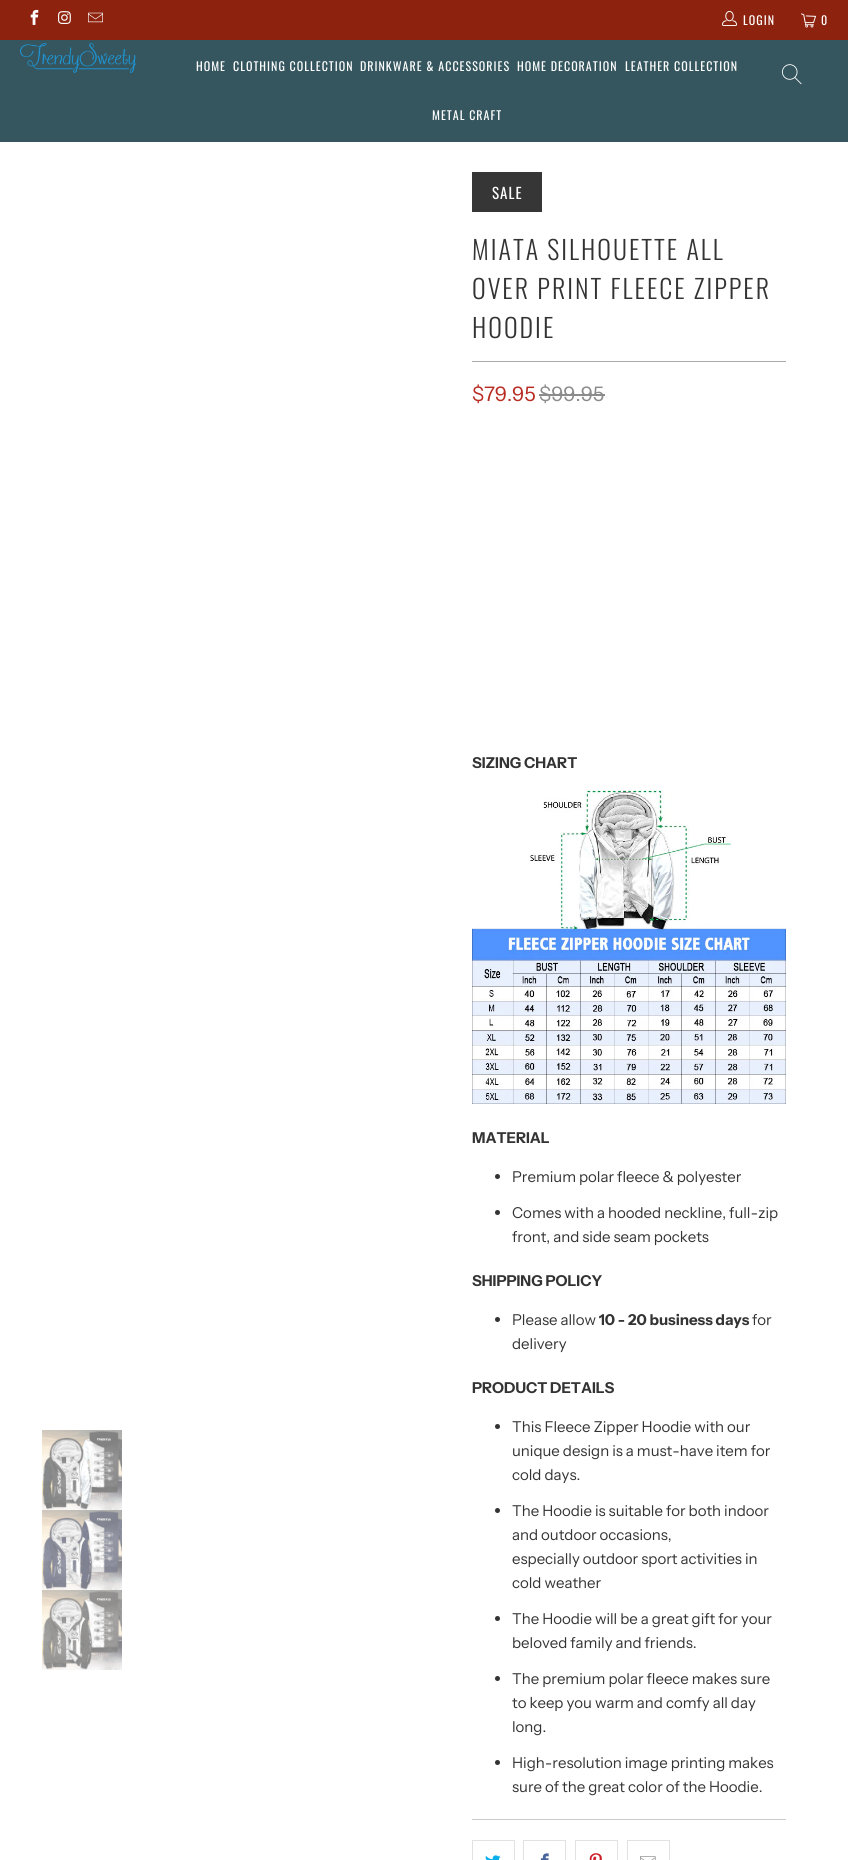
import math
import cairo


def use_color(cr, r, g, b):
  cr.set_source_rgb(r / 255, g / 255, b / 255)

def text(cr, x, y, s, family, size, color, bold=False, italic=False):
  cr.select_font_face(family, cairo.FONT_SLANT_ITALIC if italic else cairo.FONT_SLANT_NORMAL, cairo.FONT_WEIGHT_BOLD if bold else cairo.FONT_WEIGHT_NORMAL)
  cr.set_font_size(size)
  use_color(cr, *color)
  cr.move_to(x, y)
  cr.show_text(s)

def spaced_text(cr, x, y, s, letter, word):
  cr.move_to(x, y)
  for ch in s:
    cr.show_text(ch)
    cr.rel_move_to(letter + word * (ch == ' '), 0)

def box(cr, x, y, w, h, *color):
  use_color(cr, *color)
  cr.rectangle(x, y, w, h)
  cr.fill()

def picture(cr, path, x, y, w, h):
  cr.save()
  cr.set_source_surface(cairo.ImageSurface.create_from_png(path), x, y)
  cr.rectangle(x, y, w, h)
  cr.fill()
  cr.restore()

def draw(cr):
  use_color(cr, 255, 255, 255)
  cr.paint()
  box(cr, 0, 0, 848, 40, 141, 35, 15)
  picture(cr, "img_01.png", 30, 9, 9, 16)
  picture(cr, "img_02.png", 58, 11, 13, 13)
  picture(cr, "img_03.png", 88, 12, 15, 11)
  picture(cr, "img_04.png", 722, 10, 15, 16)
  picture(cr, "img_05.png", 801, 13, 15, 15)
  box(cr, 0, 40, 848, 102, 53, 86, 94)
  picture(cr, "img_06.png", 20, 43, 116, 30)
  picture(cr, "img_07.png", 782, 64, 20, 21)
  picture(cr, "img_08.png", 42, 1430, 80, 80)
  picture(cr, "img_09.png", 42, 1510, 80, 80)
  picture(cr, "img_10.png", 42, 1590, 80, 80)
  box(cr, 472, 172, 70, 40, 54, 54, 54)
  box(cr, 472, 361, 314, 1, 170, 170, 170)
  box(cr, 539, 394, 66, 2, 140, 139, 139)
  picture(cr, "img_11.png", 472, 790, 314, 314)
  use_color(cr, 51, 51, 51)
  cr.arc(497.5, 1176.5, 2.5, 0, 2 * math.pi)
  cr.fill()
  cr.arc(497.5, 1212.5, 2.5, 0, 2 * math.pi)
  cr.fill()
  cr.arc(497.5, 1319.5, 2.5, 0, 2 * math.pi)
  cr.fill()
  cr.arc(497.5, 1426.5, 2.5, 0, 2 * math.pi)
  cr.fill()
  cr.arc(497.5, 1510.5, 2.5, 0, 2 * math.pi)
  cr.fill()
  cr.arc(497.5, 1618.5, 2.5, 0, 2 * math.pi)
  cr.fill()
  cr.arc(497.5, 1678.5, 2.5, 0, 2 * math.pi)
  cr.fill()
  cr.arc(497.5, 1762.5, 2.5, 0, 2 * math.pi)
  cr.fill()
  box(cr, 472, 1819, 314, 1, 204, 204, 204)
  cr.rectangle(472.5, 1840.5, 42, 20)
  use_color(cr, 226, 226, 226)
  cr.set_line_width(1)
  cr.stroke()
  picture(cr, "img_12.png", 485, 1855, 16, 5)
  cr.rectangle(523.5, 1840.5, 42, 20)
  cr.stroke()
  picture(cr, "img_13.png", 540, 1853, 9, 7)
  cr.rectangle(575.5, 1840.5, 42, 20)
  cr.stroke()
  picture(cr, "img_14.png", 589, 1853, 13, 7)
  cr.rectangle(627.5, 1840.5, 42, 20)
  cr.stroke()
  picture(cr, "img_15.png", 640, 1856, 16, 4)
  cr.select_font_face("Oswald")
  cr.set_font_size(12)
  use_color(cr, 255, 255, 255)
  spaced_text(cr, 743, 25, "LOGIN", 1, 0)
  spaced_text(cr, 821, 25, "0", 1, 0)
  spaced_text(cr, 196, 71, "HOME", 1, 0)
  spaced_text(cr, 233, 71, "CLOTHING COLLECTION", 1, 0)
  spaced_text(cr, 360, 71, "DRINKWARE & ACCESSORIES", 1, 0)
  spaced_text(cr, 517, 71, "HOME DECORATION", 1, 0)
  spaced_text(cr, 625, 71, "LEATHER COLLECTION", 1, 0)
  spaced_text(cr, 432, 120, "METAL CRAFT", 1, 0)
  cr.set_font_size(15)
  spaced_text(cr, 492, 199, "SALE", 1, 0)
  cr.select_font_face("Oswald Light")
  cr.set_font_size(26)
  use_color(cr, 51, 51, 51)
  spaced_text(cr, 472, 260, "MIATA SILHOUETTE ALL", 2, 0)
  spaced_text(cr, 472, 299, "OVER PRINT FLEECE ZIPPER", 2, 0)
  spaced_text(cr, 472, 338, "HOODIE", 2, 0)
  text(cr, 472, 401, "$79.95", "Instrument Sans", 20, (184, 43, 33))
  text(cr, 539, 401, "$99.95", "Instrument Sans", 20, (140, 139, 139))
  text(cr, 472, 768, "SIZING CHART", "Instrument Sans", 15, (51, 51, 51), bold=True)
  text(cr, 472, 1143, "MATERIAL", "Instrument Sans", 15, (51, 51, 51), bold=True)
  text(cr, 512, 1182, "Premium polar fleece & polyester", "Instrument Sans", 15, (51, 51, 51))
  text(cr, 512, 1218, "Comes with a hooded neckline, full-zip", "Instrument Sans", 15, (51, 51, 51))
  text(cr, 512, 1242, "front, and side seam pockets", "Instrument Sans", 15, (51, 51, 51))
  text(cr, 472, 1286, "SHIPPING POLICY", "Instrument Sans", 15, (51, 51, 51), bold=True)
  text(cr, 512, 1325, "Please allow", "Instrument Sans", 15, (51, 51, 51))
  text(cr, 599, 1325, "10 - 20 business days", "Instrument Sans", 15, (51, 51, 51), bold=True)
  text(cr, 752, 1325, "for", "Instrument Sans", 15, (51, 51, 51))
  text(cr, 512, 1349, "delivery", "Instrument Sans", 15, (51, 51, 51))
  text(cr, 472, 1393, "PRODUCT DETAILS", "Instrument Sans", 15, (51, 51, 51), bold=True)
  text(cr, 512, 1432, "This Fleece Zipper Hoodie with our", "Instrument Sans", 15, (51, 51, 51))
  text(cr, 512, 1456, "unique design is a must-have item for", "Instrument Sans", 15, (51, 51, 51))
  text(cr, 512, 1480, "cold days.", "Instrument Sans", 15, (51, 51, 51))
  text(cr, 512, 1516, "The Hoodie is suitable for both indoor", "Instrument Sans", 15, (51, 51, 51))
  text(cr, 512, 1540, "and outdoor occasions,", "Instrument Sans", 15, (51, 51, 51))
  text(cr, 512, 1564, "especially outdoor sport activities in", "Instrument Sans", 15, (51, 51, 51))
  text(cr, 512, 1588, "cold weather", "Instrument Sans", 15, (51, 51, 51))
  text(cr, 512, 1624, "The Hoodie will be a great gift for your", "Instrument Sans", 15, (51, 51, 51))
  text(cr, 512, 1648, "beloved family and friends.", "Instrument Sans", 15, (51, 51, 51))
  text(cr, 512, 1684, "The premium polar fleece makes sure", "Instrument Sans", 15, (51, 51, 51))
  text(cr, 512, 1708, "to keep you warm and comfy all day", "Instrument Sans", 15, (51, 51, 51))
  text(cr, 512, 1732, "long.", "Instrument Sans", 15, (51, 51, 51))
  text(cr, 512, 1768, "High-resolution image printing makes", "Instrument Sans", 15, (51, 51, 51))
  text(cr, 512, 1792, "sure of the great color of the Hoodie.", "Instrument Sans", 15, (51, 51, 51))


surface = cairo.ImageSurface(cairo.FORMAT_RGB24, 848, 1860)
cr = cairo.Context(surface)
options = cairo.FontOptions()
options.set_hint_metrics(cairo.HINT_METRICS_OFF)
options.set_hint_style(cairo.HINT_STYLE_NONE)
cr.set_font_options(options)
cr.set_miter_limit(4)
draw(cr)
surface.write_to_png("out.png")
